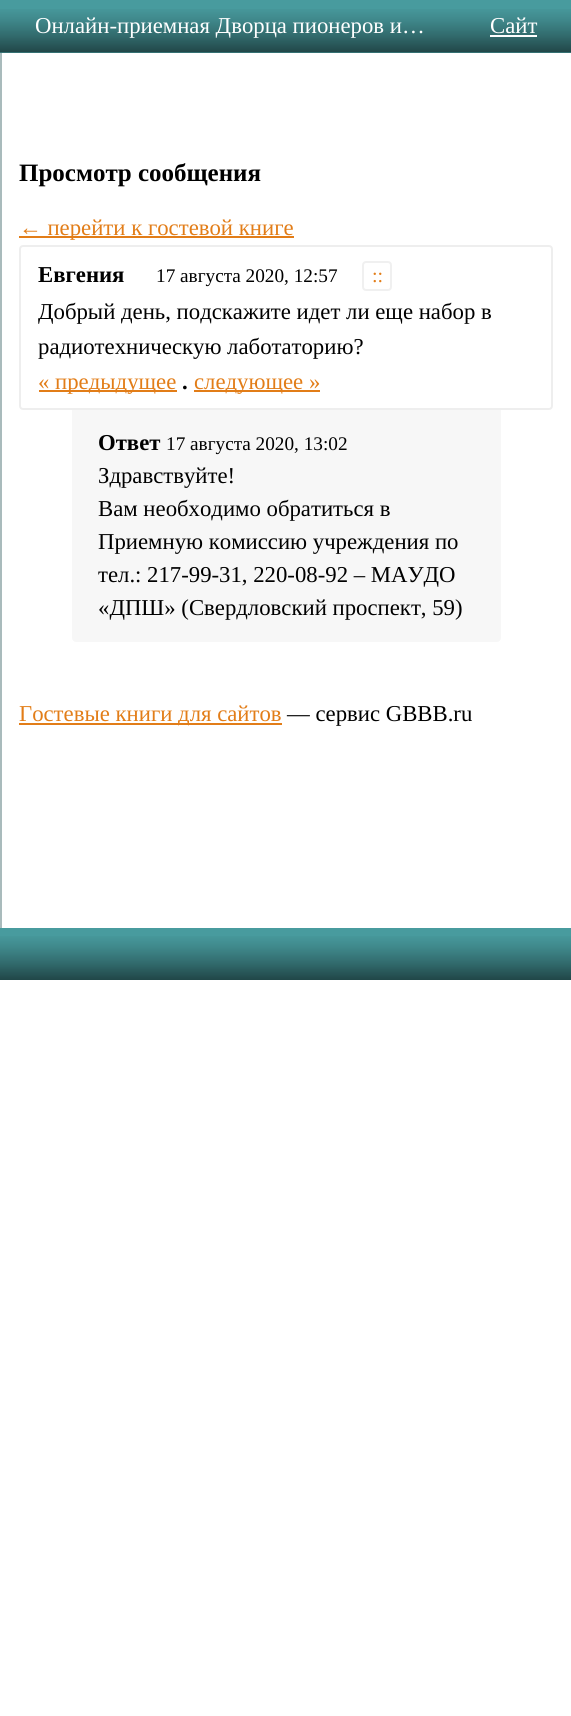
import math
import cairo


def use_color(cr, r, g, b):
  cr.set_source_rgb(r / 255, g / 255, b / 255)

def text(cr, x, y, s, family, size, color, bold=False, italic=False):
  cr.select_font_face(family, cairo.FONT_SLANT_ITALIC if italic else cairo.FONT_SLANT_NORMAL, cairo.FONT_WEIGHT_BOLD if bold else cairo.FONT_WEIGHT_NORMAL)
  cr.set_font_size(size)
  use_color(cr, *color)
  cr.move_to(x, y)
  cr.show_text(s)

def box(cr, x, y, w, h, *color):
  use_color(cr, *color)
  cr.rectangle(x, y, w, h)
  cr.fill()

def round_rect(cr, x, y, w, h, r):
  cr.new_sub_path()
  for i, (u, v) in enumerate([(x + w - r, y + h - r), (x + r, y + h - r), (x + r, y + r), (x + w - r, y + r)]):
    cr.arc(u, v, r, i * math.pi / 2, (i + 1) * math.pi / 2)
  cr.close_path()

def picture(cr, path, x, y, w, h):
  cr.save()
  cr.set_source_surface(cairo.ImageSurface.create_from_png(path), x, y)
  cr.rectangle(x, y, w, h)
  cr.fill()
  cr.restore()

def draw(cr):
  use_color(cr, 255, 255, 255)
  cr.paint()
  box(cr, 0, 0, 571, 53, 72, 155, 158)
  picture(cr, "img_01.png", 0, 9, 571, 44)
  box(cr, 490, 35, 47, 2, 255, 255, 255)
  box(cr, 0, 53, 2, 875, 169, 187, 188)
  box(cr, 19, 236, 275, 2, 226, 125, 24)
  round_rect(cr, 20, 246, 532, 163, 3)
  use_color(cr, 238, 238, 238)
  cr.stroke()
  round_rect(cr, 363, 262, 28, 28, 3)
  use_color(cr, 240, 240, 240)
  cr.stroke()
  box(cr, 39, 390, 138, 2, 226, 125, 24)
  box(cr, 194, 390, 126, 2, 226, 125, 24)
  use_color(cr, 247, 247, 247)
  cr.new_path()
  cr.move_to(72, 410)
  cr.line_to(501, 410)
  cr.line_to(501, 638)
  cr.curve_to(501, 640, 499, 642, 497, 642)
  cr.line_to(76, 642)
  cr.curve_to(74, 642, 72, 640, 72, 638)
  cr.close_path()
  cr.fill()
  box(cr, 19, 723, 263, 2, 226, 125, 24)
  box(cr, 0, 928, 571, 52, 72, 155, 158)
  picture(cr, "img_02.png", 0, 936, 571, 44)
  text(cr, 35, 33, "Онлайн-приемная Дворца пионеров и…", "Liberation Serif", 22.75, (255, 255, 255))
  text(cr, 490, 33, "Сайт", "Liberation Serif", 22.75, (255, 255, 255))
  text(cr, 19, 181, "Просмотр сообщения", "Liberation Serif", 25, (0, 0, 0), bold=True)
  text(cr, 19, 235, "← перейти к гостевой книге", "Liberation Serif", 22.75, (226, 125, 24))
  text(cr, 38, 282, "Евгения", "Liberation Serif", 22.75, (0, 0, 0), bold=True)
  text(cr, 156, 282, "17 августа 2020, 12:57", "Liberation Serif", 19.25, (0, 0, 0))
  text(cr, 372, 282, "::", "Liberation Serif", 20, (226, 125, 24))
  text(cr, 38, 319, "Добрый день, подскажите идет ли еще набор в", "Liberation Serif", 22.75, (0, 0, 0))
  text(cr, 38, 354, "радиотехническую лаботаторию?", "Liberation Serif", 22.75, (0, 0, 0))
  text(cr, 38, 389, "« предыдущее", "Liberation Serif", 22.75, (226, 125, 24))
  text(cr, 182, 389, ".", "Liberation Serif", 22.75, (0, 0, 0), bold=True)
  text(cr, 194, 389, "следующее »", "Liberation Serif", 22.75, (226, 125, 24))
  text(cr, 98, 450, "Ответ", "Liberation Serif", 22.75, (0, 0, 0), bold=True)
  text(cr, 166, 450, "17 августа 2020, 13:02", "Liberation Serif", 19.25, (0, 0, 0))
  text(cr, 98, 483, "Здравствуйте!", "Liberation Serif", 22.75, (0, 0, 0))
  text(cr, 98, 516, "Вам необходимо обратиться в", "Liberation Serif", 22.75, (0, 0, 0))
  text(cr, 98, 549, "Приемную комиссию учреждения по", "Liberation Serif", 22.75, (0, 0, 0))
  text(cr, 98, 582, "тел.: 217-99-31, 220-08-92 – МАУДО", "Liberation Serif", 22.75, (0, 0, 0))
  text(cr, 98, 615, "«ДПШ» (Свердловский проспект, 59)", "Liberation Serif", 22.75, (0, 0, 0))
  text(cr, 19, 721, "Гостевые книги для сайтов", "Liberation Serif", 22.75, (226, 125, 24))
  text(cr, 287, 721, "— сервис GBBB.ru", "Liberation Serif", 22.75, (0, 0, 0))


surface = cairo.ImageSurface(cairo.FORMAT_RGB24, 571, 1716)
cr = cairo.Context(surface)
options = cairo.FontOptions()
options.set_hint_metrics(cairo.HINT_METRICS_OFF)
options.set_hint_style(cairo.HINT_STYLE_NONE)
cr.set_font_options(options)
cr.set_miter_limit(4)
draw(cr)
surface.write_to_png("out.png")
